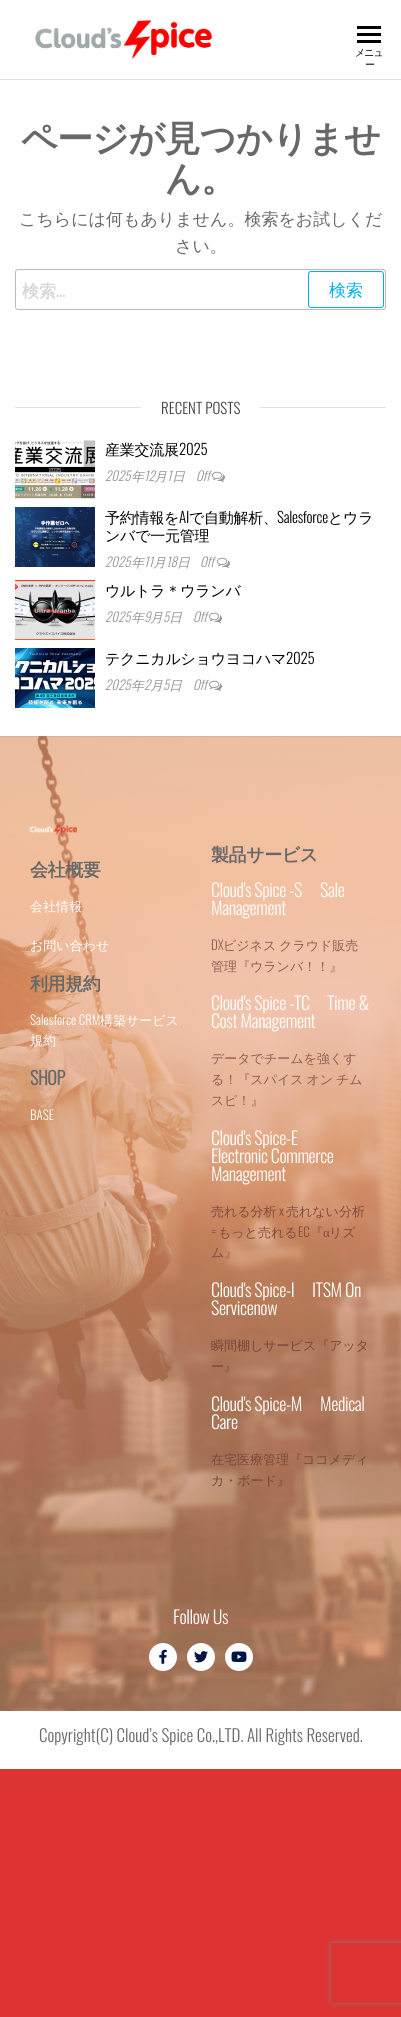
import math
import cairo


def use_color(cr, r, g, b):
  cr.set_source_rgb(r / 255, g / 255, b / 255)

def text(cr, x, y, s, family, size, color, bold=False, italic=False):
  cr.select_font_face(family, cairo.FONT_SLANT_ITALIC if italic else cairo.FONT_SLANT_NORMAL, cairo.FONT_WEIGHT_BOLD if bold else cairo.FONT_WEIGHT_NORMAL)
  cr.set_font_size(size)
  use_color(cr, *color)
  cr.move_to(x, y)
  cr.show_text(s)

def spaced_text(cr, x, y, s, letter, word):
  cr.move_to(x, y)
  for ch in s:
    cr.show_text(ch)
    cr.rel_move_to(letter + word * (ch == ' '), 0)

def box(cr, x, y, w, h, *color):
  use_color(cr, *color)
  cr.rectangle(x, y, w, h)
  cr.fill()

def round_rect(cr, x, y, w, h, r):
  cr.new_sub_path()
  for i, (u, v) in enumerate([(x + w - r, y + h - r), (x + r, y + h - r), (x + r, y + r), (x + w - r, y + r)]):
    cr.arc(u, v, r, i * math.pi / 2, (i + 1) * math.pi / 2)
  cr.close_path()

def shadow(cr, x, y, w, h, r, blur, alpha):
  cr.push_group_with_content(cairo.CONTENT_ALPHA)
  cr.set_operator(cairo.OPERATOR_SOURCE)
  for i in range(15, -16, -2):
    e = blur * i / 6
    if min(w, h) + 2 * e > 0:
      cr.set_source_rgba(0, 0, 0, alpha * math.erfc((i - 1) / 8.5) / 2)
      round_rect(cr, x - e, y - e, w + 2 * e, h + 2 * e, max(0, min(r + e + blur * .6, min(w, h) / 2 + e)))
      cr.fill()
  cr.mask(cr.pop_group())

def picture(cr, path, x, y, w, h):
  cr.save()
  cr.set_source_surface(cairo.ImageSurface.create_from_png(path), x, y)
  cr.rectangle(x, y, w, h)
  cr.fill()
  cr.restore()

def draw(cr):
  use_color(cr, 221, 51, 51)
  cr.paint()
  box(cr, 0, 0, 401, 79, 255, 255, 255)
  box(cr, 0, 79, 401, 1, 226, 226, 226)
  picture(cr, "img_01.png", 35, 20, 178, 39)
  box(cr, 357, 26, 24, 3, 0, 0, 0)
  box(cr, 357, 33, 24, 3, 0, 0, 0)
  box(cr, 357, 40, 24, 3, 0, 0, 0)
  box(cr, 0, 80, 401, 656, 255, 255, 255)
  round_rect(cr, 15.5, 269.5, 370, 40, 2.5)
  use_color(cr, 187, 187, 187)
  cr.set_line_width(1)
  cr.stroke()
  round_rect(cr, 308.5, 271.5, 75, 36, 2.5)
  use_color(cr, 0, 175, 242)
  cr.stroke()
  box(cr, 15, 407, 371, 1, 226, 226, 226)
  box(cr, 141, 407, 119, 1, 255, 255, 255)
  picture(cr, "img_02.png", 15, 440, 80, 59)
  picture(cr, "img_03.png", 212, 471, 13, 11)
  picture(cr, "img_04.png", 15, 507, 80, 60)
  picture(cr, "img_03.png", 217, 557, 13, 11)
  picture(cr, "img_05.png", 15, 580, 80, 60)
  picture(cr, "img_03.png", 209, 612, 13, 11)
  picture(cr, "img_06.png", 15, 648, 80, 60)
  picture(cr, "img_03.png", 209, 680, 13, 11)
  picture(cr, "img_07.png", 0, 736, 401, 975)
  picture(cr, "img_08.png", 30, 825, 47, 10)
  cr.arc(163, 1657, 14, 0, 2 * math.pi)
  cr.fill()
  picture(cr, "img_09.png", 159, 1649, 8, 15)
  cr.arc(201, 1657, 14, 0, 2 * math.pi)
  cr.fill()
  picture(cr, "img_10.png", 194, 1651, 14, 12)
  cr.arc(239, 1657, 14, 0, 2 * math.pi)
  cr.fill()
  picture(cr, "img_11.png", 231, 1651, 16, 11)
  box(cr, 0, 1711, 401, 58, 255, 255, 255)
  cr.save()
  cr.set_fill_rule(cairo.FILL_RULE_EVEN_ODD)
  cr.new_path()
  cr.move_to(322, 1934)
  cr.line_to(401, 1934)
  cr.line_to(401, 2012)
  cr.line_to(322, 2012)
  cr.close_path()
  cr.move_to(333, 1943)
  cr.line_to(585, 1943)
  cr.curve_to(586, 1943, 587, 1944, 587, 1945)
  cr.line_to(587, 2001)
  cr.curve_to(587, 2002, 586, 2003, 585, 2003)
  cr.line_to(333, 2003)
  cr.curve_to(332, 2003, 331, 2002, 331, 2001)
  cr.line_to(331, 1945)
  cr.curve_to(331, 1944, 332, 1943, 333, 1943)
  cr.close_path()
  cr.clip()
  use_color(cr, 128, 128, 128)
  shadow(cr, 331, 1943, 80, 60, 2, 2.5, 1)
  cr.restore()
  cr.select_font_face("WenQuanYi Zen Hei Medium")
  cr.set_font_size(10)
  use_color(cr, 0, 0, 0)
  spaced_text(cr, 355, 56, "メニュ", -1, 0)
  spaced_text(cr, 365, 68, "ー", -1, 0)
  cr.select_font_face("WenQuanYi Zen Hei", cairo.FONT_SLANT_NORMAL, cairo.FONT_WEIGHT_BOLD)
  cr.set_font_size(36)
  use_color(cr, 104, 104, 104)
  spaced_text(cr, 21, 151, "ページが見つかりませ", -0.75, 0)
  spaced_text(cr, 165, 191, "ん。", -0.75, 0)
  text(cr, 19, 225, "こちらには何もありません。検索をお試しくだ", "WenQuanYi Zen Hei Medium", 17, (104, 104, 104))
  text(cr, 175, 252, "さい。", "WenQuanYi Zen Hei Medium", 17, (104, 104, 104))
  text(cr, 22, 297, "検索", "WenQuanYi Zen Hei", 17, (215, 215, 215), bold=True)
  text(cr, 56, 297, "…", "Oswald", 17, (215, 215, 215), bold=True)
  text(cr, 329, 296, "検索", "WenQuanYi Zen Hei Medium", 17, (0, 175, 242))
  text(cr, 161, 414, "RECENT POSTS", "Oswald Light", 15, (64, 64, 64))
  cr.select_font_face("WenQuanYi Zen Hei Medium")
  use_color(cr, 0, 0, 0)
  spaced_text(cr, 105, 455, "産業交流展", -0.25, 0)
  cr.select_font_face("Oswald Light")
  spaced_text(cr, 179, 455, "2025", -0.25, 0)
  text(cr, 105, 481, "2025", "Oswald Light", 13, (149, 149, 149), italic=True)
  text(cr, 131, 481, "年", "WenQuanYi Zen Hei Medium", 13, (149, 149, 149), italic=True)
  text(cr, 144, 481, "12", "Oswald Light", 13, (149, 149, 149), italic=True)
  text(cr, 154, 481, "月", "WenQuanYi Zen Hei Medium", 13, (149, 149, 149), italic=True)
  text(cr, 167, 481, "1", "Oswald Light", 13, (149, 149, 149), italic=True)
  text(cr, 172, 481, "日", "WenQuanYi Zen Hei Medium", 13, (149, 149, 149), italic=True)
  text(cr, 196, 481, "Off", "Oswald Light", 13, (149, 149, 149), italic=True)
  cr.select_font_face("WenQuanYi Zen Hei Medium")
  cr.set_font_size(15)
  use_color(cr, 0, 0, 0)
  spaced_text(cr, 105, 523, "予約情報を", -0.25, 0)
  cr.select_font_face("Oswald Light")
  spaced_text(cr, 179, 523, "AI", -0.25, 0)
  cr.select_font_face("WenQuanYi Zen Hei Medium")
  spaced_text(cr, 189, 523, "で自動解析、", -0.25, 0)
  cr.select_font_face("Oswald Light")
  spaced_text(cr, 277, 523, "Salesforce", -0.25, 0)
  cr.select_font_face("WenQuanYi Zen Hei Medium")
  spaced_text(cr, 328, 523, "とウラ", -0.25, 0)
  spaced_text(cr, 105, 541, "ンバで一元管理", -0.25, 0)
  text(cr, 105, 567, "2025", "Oswald Light", 13, (149, 149, 149), italic=True)
  text(cr, 131, 567, "年", "WenQuanYi Zen Hei Medium", 13, (149, 149, 149), italic=True)
  text(cr, 144, 567, "11", "Oswald Light", 13, (149, 149, 149), italic=True)
  text(cr, 153, 567, "月", "WenQuanYi Zen Hei Medium", 13, (149, 149, 149), italic=True)
  text(cr, 166, 567, "18", "Oswald Light", 13, (149, 149, 149), italic=True)
  text(cr, 177, 567, "日", "WenQuanYi Zen Hei Medium", 13, (149, 149, 149), italic=True)
  text(cr, 200, 567, "Off", "Oswald Light", 13, (149, 149, 149), italic=True)
  cr.select_font_face("WenQuanYi Zen Hei Medium")
  cr.set_font_size(15)
  use_color(cr, 0, 0, 0)
  spaced_text(cr, 105, 596, "ウルトラ＊ウランバ", -0.25, 0)
  text(cr, 105, 622, "2025", "Oswald Light", 13, (149, 149, 149), italic=True)
  text(cr, 131, 622, "年", "WenQuanYi Zen Hei Medium", 13, (149, 149, 149), italic=True)
  text(cr, 144, 622, "9", "Oswald Light", 13, (149, 149, 149), italic=True)
  text(cr, 150, 622, "月", "WenQuanYi Zen Hei Medium", 13, (149, 149, 149), italic=True)
  text(cr, 163, 622, "5", "Oswald Light", 13, (149, 149, 149), italic=True)
  text(cr, 169, 622, "日", "WenQuanYi Zen Hei Medium", 13, (149, 149, 149), italic=True)
  text(cr, 193, 622, "Off", "Oswald Light", 13, (149, 149, 149), italic=True)
  cr.select_font_face("WenQuanYi Zen Hei Medium")
  cr.set_font_size(15)
  use_color(cr, 0, 0, 0)
  spaced_text(cr, 105, 664, "テクニカルショウヨコハマ", -0.25, 0)
  cr.select_font_face("Oswald Light")
  spaced_text(cr, 286, 664, "2025", -0.25, 0)
  text(cr, 105, 690, "2025", "Oswald Light", 13, (149, 149, 149), italic=True)
  text(cr, 131, 690, "年", "WenQuanYi Zen Hei Medium", 13, (149, 149, 149), italic=True)
  text(cr, 144, 690, "2", "Oswald Light", 13, (149, 149, 149), italic=True)
  text(cr, 150, 690, "月", "WenQuanYi Zen Hei Medium", 13, (149, 149, 149), italic=True)
  text(cr, 163, 690, "5", "Oswald Light", 13, (149, 149, 149), italic=True)
  text(cr, 169, 690, "日", "WenQuanYi Zen Hei Medium", 13, (149, 149, 149), italic=True)
  text(cr, 193, 690, "Off", "Oswald Light", 13, (149, 149, 149), italic=True)
  cr.select_font_face("WenQuanYi Zen Hei", cairo.FONT_SLANT_NORMAL, cairo.FONT_WEIGHT_BOLD)
  cr.set_font_size(18)
  use_color(cr, 104, 104, 104)
  spaced_text(cr, 30, 876, "会社概要", -0.4, 0)
  text(cr, 30, 911, "会社情報", "WenQuanYi Zen Hei Medium", 13, (255, 255, 255))
  text(cr, 30, 950, "お問い合わせ", "WenQuanYi Zen Hei Medium", 13, (255, 255, 255))
  cr.select_font_face("WenQuanYi Zen Hei", cairo.FONT_SLANT_NORMAL, cairo.FONT_WEIGHT_BOLD)
  cr.set_font_size(18)
  use_color(cr, 104, 104, 104)
  spaced_text(cr, 30, 990, "利用規約", -0.4, 0)
  text(cr, 30, 1025, "Salesforce CRM", "Oswald Light", 13, (255, 255, 255))
  text(cr, 100, 1025, "構築サービス", "WenQuanYi Zen Hei Medium", 13, (255, 255, 255))
  text(cr, 30, 1045, "規約", "WenQuanYi Zen Hei Medium", 13, (255, 255, 255))
  cr.select_font_face("Oswald", cairo.FONT_SLANT_NORMAL, cairo.FONT_WEIGHT_BOLD)
  cr.set_font_size(18)
  use_color(cr, 104, 104, 104)
  spaced_text(cr, 30, 1085, "SHOP", -0.4, 0)
  text(cr, 30, 1120, "BASE", "Oswald Light", 13, (255, 255, 255))
  cr.select_font_face("WenQuanYi Zen Hei", cairo.FONT_SLANT_NORMAL, cairo.FONT_WEIGHT_BOLD)
  cr.set_font_size(18)
  use_color(cr, 104, 104, 104)
  spaced_text(cr, 211, 861, "製品サービス", -0.4, 0)
  cr.select_font_face("Oswald Light")
  use_color(cr, 255, 255, 255)
  spaced_text(cr, 211, 897, "Cloud's Spice -S", -0.4, 0)
  spaced_text(cr, 320, 897, "Sale", -0.4, 0)
  spaced_text(cr, 211, 915, "Management", -0.4, 0)
  text(cr, 211, 950, "DX", "Oswald Light", 13, (140, 93, 84))
  cr.select_font_face("WenQuanYi Zen Hei Medium")
  spaced_text(cr, 223, 950, "ビジネス クラウド販売", 0, -1)
  text(cr, 211, 971, "管理『ウランバ！！』", "WenQuanYi Zen Hei Medium", 13, (140, 93, 84))
  cr.select_font_face("Oswald Light")
  cr.set_font_size(18)
  use_color(cr, 255, 255, 255)
  spaced_text(cr, 211, 1010, "Cloud's Spice -TC", -0.4, 0)
  spaced_text(cr, 327, 1010, "Time &", -0.4, 0)
  spaced_text(cr, 211, 1028, "Cost Management", -0.4, 0)
  text(cr, 211, 1063, "データでチームを強くす", "WenQuanYi Zen Hei Medium", 13, (140, 93, 84))
  spaced_text(cr, 211, 1084, "る！『スパイス オン チム", 0, -1)
  text(cr, 211, 1105, "スピ！』", "WenQuanYi Zen Hei Medium", 13, (140, 93, 84))
  cr.select_font_face("Oswald Light")
  cr.set_font_size(18)
  use_color(cr, 255, 255, 255)
  spaced_text(cr, 211, 1145, "Cloud's Spice-E", -0.4, 0)
  spaced_text(cr, 211, 1163, "Electronic Commerce", -0.4, 0)
  spaced_text(cr, 211, 1181, "Management", -0.4, 0)
  text(cr, 211, 1216, "売れる分析", "WenQuanYi Zen Hei Medium", 13, (127, 74, 61))
  text(cr, 279, 1216, "x", "Oswald Light", 13, (127, 74, 61))
  text(cr, 286, 1216, "売れない分析", "WenQuanYi Zen Hei Medium", 13, (127, 74, 61))
  text(cr, 211, 1237, "=", "Oswald Light", 13, (127, 74, 61))
  text(cr, 218, 1237, "もっと売れる", "WenQuanYi Zen Hei Medium", 13, (127, 74, 61))
  text(cr, 298, 1237, "EC", "Oswald Light", 13, (127, 74, 61))
  text(cr, 310, 1237, "『", "WenQuanYi Zen Hei Medium", 13, (127, 74, 61))
  text(cr, 323, 1237, "α", "Liberation Serif", 13, (127, 74, 61))
  text(cr, 329, 1237, "リズ", "WenQuanYi Zen Hei Medium", 13, (127, 74, 61))
  text(cr, 211, 1257, "ム』", "WenQuanYi Zen Hei Medium", 13, (127, 74, 61))
  cr.select_font_face("Oswald Light")
  cr.set_font_size(18)
  use_color(cr, 255, 255, 255)
  spaced_text(cr, 211, 1297, "Cloud's Spice-I", -0.4, 0)
  spaced_text(cr, 312, 1297, "ITSM On", -0.4, 0)
  spaced_text(cr, 211, 1315, "Servicenow", -0.4, 0)
  text(cr, 211, 1350, "瞬間棚しサービス『アッタ", "WenQuanYi Zen Hei Medium", 13, (118, 69, 59))
  text(cr, 211, 1371, "ー』", "WenQuanYi Zen Hei Medium", 13, (118, 69, 59))
  cr.select_font_face("Oswald Light")
  cr.set_font_size(18)
  use_color(cr, 255, 255, 255)
  spaced_text(cr, 211, 1411, "Cloud's Spice-M", -0.4, 0)
  spaced_text(cr, 320, 1411, "Medical", -0.4, 0)
  spaced_text(cr, 211, 1429, "Care", -0.4, 0)
  text(cr, 211, 1464, "在宅医療管理『ココメディ", "WenQuanYi Zen Hei Medium", 13, (118, 69, 59))
  text(cr, 211, 1485, "カ・ボード』", "WenQuanYi Zen Hei Medium", 13, (118, 69, 59))
  cr.select_font_face("Oswald Light")
  cr.set_font_size(18)
  use_color(cr, 255, 255, 255)
  spaced_text(cr, 173, 1624, "Follow Us", -0.4, 0)
  text(cr, 39, 1742, "Copyright(C) Cloud’s Spice Co.,LTD. All Rights Reserved.", "Oswald Light", 17, (104, 104, 104))


surface = cairo.ImageSurface(cairo.FORMAT_RGB24, 401, 2017)
cr = cairo.Context(surface)
options = cairo.FontOptions()
options.set_hint_metrics(cairo.HINT_METRICS_OFF)
options.set_hint_style(cairo.HINT_STYLE_NONE)
cr.set_font_options(options)
cr.set_miter_limit(4)
draw(cr)
surface.write_to_png("out.png")
